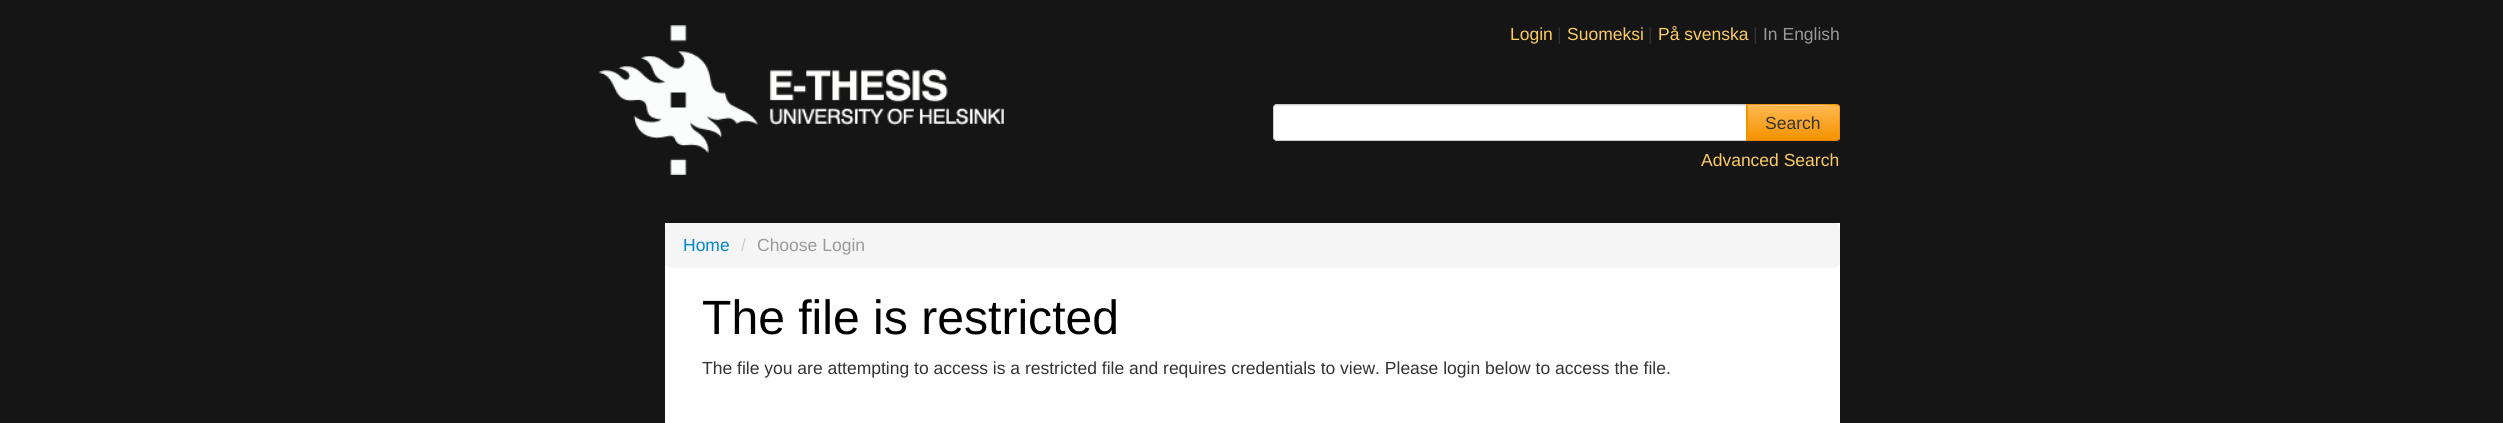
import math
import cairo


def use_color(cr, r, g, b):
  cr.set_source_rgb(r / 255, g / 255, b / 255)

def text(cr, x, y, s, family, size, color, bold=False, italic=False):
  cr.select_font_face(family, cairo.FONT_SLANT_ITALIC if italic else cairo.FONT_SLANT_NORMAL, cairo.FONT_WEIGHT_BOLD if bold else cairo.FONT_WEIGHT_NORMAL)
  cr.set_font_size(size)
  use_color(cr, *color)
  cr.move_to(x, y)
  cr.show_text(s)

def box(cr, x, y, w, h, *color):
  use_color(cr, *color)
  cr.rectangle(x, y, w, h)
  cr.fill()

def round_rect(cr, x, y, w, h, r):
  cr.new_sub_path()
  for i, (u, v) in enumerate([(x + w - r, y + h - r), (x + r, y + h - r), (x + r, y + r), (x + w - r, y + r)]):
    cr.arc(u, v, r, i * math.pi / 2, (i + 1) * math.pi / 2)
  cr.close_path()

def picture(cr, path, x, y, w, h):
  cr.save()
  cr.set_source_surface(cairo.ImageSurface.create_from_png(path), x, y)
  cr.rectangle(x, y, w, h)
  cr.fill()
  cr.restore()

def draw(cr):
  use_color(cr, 21, 21, 21)
  cr.paint()
  picture(cr, "img_01.png", 598, 25, 406, 150)
  use_color(cr, 255, 255, 255)
  cr.new_path()
  cr.move_to(1277, 104)
  cr.line_to(1748, 104)
  cr.line_to(1748, 141)
  cr.line_to(1277, 141)
  cr.curve_to(1275, 141, 1273, 139, 1273, 137)
  cr.line_to(1273, 108)
  cr.curve_to(1273, 106, 1275, 104, 1277, 104)
  cr.close_path()
  cr.fill()
  use_color(cr, 236, 236, 236)
  cr.new_path()
  cr.move_to(1276, 106)
  cr.line_to(1746, 106)
  cr.line_to(1746, 105)
  cr.line_to(1276, 105)
  cr.line_to(1274, 106)
  cr.line_to(1274, 109)
  cr.curve_to(1274, 107, 1275, 106, 1276, 106)
  cr.close_path()
  cr.fill()
  cr.new_path()
  cr.move_to(1277, 104.5)
  cr.line_to(1747.5, 104.5)
  cr.line_to(1747.5, 140.5)
  cr.line_to(1277, 140.5)
  cr.curve_to(1275, 140.5, 1273.5, 139, 1273.5, 137)
  cr.line_to(1273.5, 108)
  cr.curve_to(1273.5, 106, 1275, 104.5, 1277, 104.5)
  cr.close_path()
  use_color(cr, 204, 204, 204)
  cr.set_line_width(1)
  cr.stroke()
  use_color(cr, 245, 147, 0)
  cr.new_path()
  cr.move_to(1746, 104)
  cr.line_to(1836, 104)
  cr.curve_to(1838, 104, 1840, 106, 1840, 108)
  cr.line_to(1840, 137)
  cr.curve_to(1840, 139, 1838, 141, 1836, 141)
  cr.line_to(1746, 141)
  cr.close_path()
  cr.fill()
  cr.save()
  cr.new_path()
  cr.move_to(1746, 104)
  cr.line_to(1836, 104)
  cr.curve_to(1838, 104, 1840, 106, 1840, 108)
  cr.line_to(1840, 137)
  cr.curve_to(1840, 139, 1838, 141, 1836, 141)
  cr.line_to(1746, 141)
  cr.close_path()
  cr.clip()
  gradient = cairo.LinearGradient(1793, 105, 1793, 140)
  gradient.add_color_stop_rgba(0, 1, 0.725, 0.318, 1)
  gradient.add_color_stop_rgba(1, 0.957, 0.573, 0, 1)
  cr.set_source(gradient)
  cr.rectangle(1747, 105, 93, 35)
  cr.fill()
  cr.restore()
  use_color(cr, 255, 198, 115)
  cr.new_path()
  cr.move_to(1748, 106)
  cr.line_to(1836, 106)
  cr.curve_to(1838, 106, 1839, 107, 1839, 109)
  cr.line_to(1839, 108)
  cr.curve_to(1839, 106, 1838, 105, 1836, 105)
  cr.line_to(1748, 105)
  cr.close_path()
  cr.fill()
  use_color(cr, 244, 146, 0)
  cr.new_path()
  cr.move_to(1748, 105)
  cr.curve_to(1757, 105, 1836, 104, 1838, 106)
  cr.line_to(1839, 105)
  cr.line_to(1837, 104)
  cr.line_to(1746, 104)
  cr.line_to(1748, 106)
  cr.close_path()
  cr.fill()
  cr.new_path()
  cr.move_to(1839, 105)
  cr.curve_to(1839.5, 105.5, 1840, 106.5, 1840, 108)
  cr.line_to(1840, 138)
  cr.curve_to(1840, 139, 1839.5, 139.5, 1839, 140)
  cr.line_to(1838, 139.5)
  cr.line_to(1839, 138)
  cr.line_to(1839, 113)
  cr.curve_to(1839, 112, 1840, 107, 1838, 105.5)
  cr.close_path()
  cr.fill()
  use_color(cr, 222, 133, 0)
  cr.new_path()
  cr.move_to(1839, 140)
  cr.line_to(1836, 141)
  cr.line_to(1746, 141)
  cr.line_to(1748, 140)
  cr.line_to(1836, 140)
  cr.line_to(1838, 139)
  cr.close_path()
  cr.fill()
  use_color(cr, 244, 146, 0)
  cr.new_path()
  cr.move_to(1746, 104)
  cr.line_to(1748, 105.5)
  cr.line_to(1748, 139.5)
  cr.line_to(1746.5, 141)
  cr.line_to(1746, 141)
  cr.close_path()
  cr.fill()
  box(cr, 665, 223, 1175, 200, 255, 255, 255)
  use_color(cr, 245, 245, 245)
  round_rect(cr, 665, 223, 1175, 45, 5)
  cr.fill()
  text(cr, 1510, 40, "Login", "Liberation Sans", 17.5, (251, 204, 98))
  text(cr, 1557, 40, "|", "Liberation Sans", 17.5, (51, 51, 51))
  text(cr, 1567, 40, "Suomeksi", "Liberation Sans", 17.5, (251, 204, 98))
  text(cr, 1648, 40, "|", "Liberation Sans", 17.5, (51, 51, 51))
  text(cr, 1658, 40, "På svenska", "Liberation Sans", 17.5, (251, 204, 98))
  text(cr, 1753, 40, "|", "Liberation Sans", 17.5, (51, 51, 51))
  text(cr, 1763, 40, "In English", "Liberation Sans", 17.5, (153, 153, 153))
  text(cr, 1765, 129, "Search", "Liberation Sans", 17.5, (51, 51, 51))
  text(cr, 1701, 166, "Advanced Search", "Liberation Sans", 17.5, (251, 204, 98))
  text(cr, 683, 251, "Home", "Liberation Sans", 17.5, (0, 136, 204))
  text(cr, 741, 251, "/", "Liberation Sans", 17.5, (204, 204, 204))
  text(cr, 757, 251, "Choose Login", "Liberation Sans", 17.5, (153, 153, 153))
  text(cr, 702, 334, "The file is restricted", "Liberation Sans", 48.1, (0, 0, 0))
  text(cr, 702, 374, "The file you are attempting to access is a restricted file and requires credentials to view. Please login below to access the file.", "Liberation Sans", 17.5, (51, 51, 51))


surface = cairo.ImageSurface(cairo.FORMAT_RGB24, 2503, 423)
cr = cairo.Context(surface)
options = cairo.FontOptions()
options.set_hint_metrics(cairo.HINT_METRICS_OFF)
options.set_hint_style(cairo.HINT_STYLE_NONE)
cr.set_font_options(options)
cr.set_miter_limit(4)
draw(cr)
surface.write_to_png("out.png")
